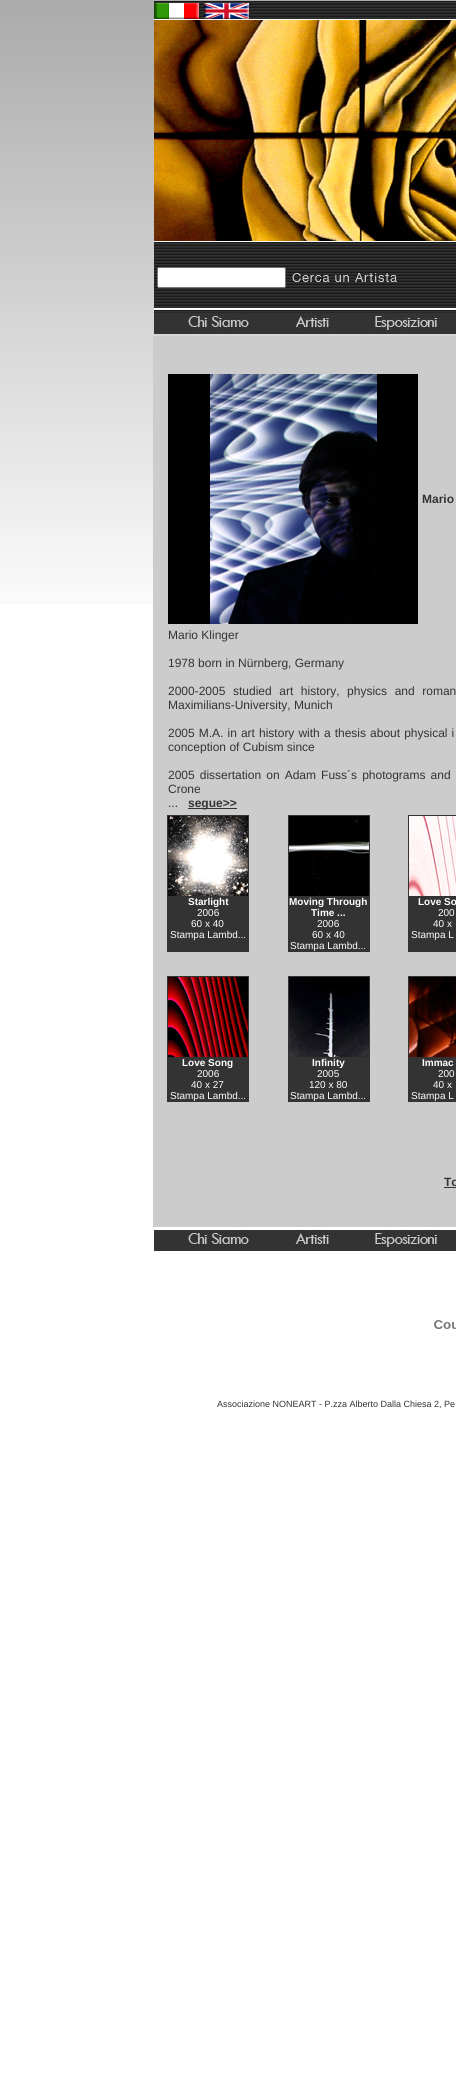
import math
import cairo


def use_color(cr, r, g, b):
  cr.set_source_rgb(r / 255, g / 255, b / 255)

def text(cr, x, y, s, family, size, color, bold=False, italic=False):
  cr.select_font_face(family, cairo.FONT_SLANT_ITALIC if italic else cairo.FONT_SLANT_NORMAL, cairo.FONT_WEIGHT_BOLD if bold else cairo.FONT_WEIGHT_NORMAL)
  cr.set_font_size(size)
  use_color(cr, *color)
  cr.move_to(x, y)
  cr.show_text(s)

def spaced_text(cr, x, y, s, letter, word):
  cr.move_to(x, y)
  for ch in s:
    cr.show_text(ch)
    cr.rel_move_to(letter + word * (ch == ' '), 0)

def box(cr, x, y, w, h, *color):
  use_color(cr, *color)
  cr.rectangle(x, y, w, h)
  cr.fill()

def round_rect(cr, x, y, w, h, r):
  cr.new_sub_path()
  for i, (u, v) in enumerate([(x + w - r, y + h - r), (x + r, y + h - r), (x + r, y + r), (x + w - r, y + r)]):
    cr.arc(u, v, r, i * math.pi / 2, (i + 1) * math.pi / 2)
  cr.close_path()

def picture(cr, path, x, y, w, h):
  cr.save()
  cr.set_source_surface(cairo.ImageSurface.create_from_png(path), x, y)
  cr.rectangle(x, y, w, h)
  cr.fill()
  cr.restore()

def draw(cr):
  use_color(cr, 255, 255, 255)
  cr.paint()
  picture(cr, "img_01.png", 0, 0, 456, 604)
  picture(cr, "img_02.png", 154, 1, 302, 19)
  picture(cr, "img_03.png", 154, 3, 45, 16)
  picture(cr, "img_04.png", 204, 3, 45, 16)
  picture(cr, "img_05.png", 154, 20, 302, 221)
  picture(cr, "img_06.png", 154, 241, 302, 72)
  use_color(cr, 255, 255, 255)
  round_rect(cr, 157.5, 267.5, 128, 20, 1.5)
  cr.fill_preserve()
  use_color(cr, 118, 118, 118)
  cr.set_line_width(1)
  cr.stroke()
  picture(cr, "img_07.png", 292, 273, 105, 9)
  box(cr, 154, 313, 24, 21, 51, 51, 51)
  picture(cr, "img_08.png", 178, 313, 75, 21)
  box(cr, 253, 313, 33, 21, 51, 51, 51)
  picture(cr, "img_09.png", 286, 313, 52, 21)
  box(cr, 338, 313, 35, 21, 51, 51, 51)
  picture(cr, "img_10.png", 373, 313, 65, 21)
  box(cr, 438, 313, 18, 21, 51, 51, 51)
  box(cr, 153, 336, 303, 891, 204, 204, 204)
  picture(cr, "img_11.png", 168, 374, 250, 250)
  box(cr, 188, 808, 49, 1, 51, 51, 51)
  box(cr, 167, 815, 82, 137, 51, 51, 51)
  picture(cr, "img_12.png", 168, 816, 80, 80)
  box(cr, 288, 815, 82, 137, 51, 51, 51)
  picture(cr, "img_13.png", 289, 816, 80, 80)
  box(cr, 408, 815, 48, 137, 51, 51, 51)
  picture(cr, "img_14.png", 409, 816, 47, 80)
  box(cr, 167, 976, 82, 126, 51, 51, 51)
  picture(cr, "img_15.png", 168, 977, 80, 80)
  box(cr, 288, 976, 82, 126, 51, 51, 51)
  picture(cr, "img_16.png", 289, 977, 80, 80)
  box(cr, 408, 976, 48, 126, 51, 51, 51)
  picture(cr, "img_17.png", 409, 977, 47, 80)
  box(cr, 444, 1187, 12, 1, 51, 51, 51)
  box(cr, 154, 1230, 24, 21, 51, 51, 51)
  picture(cr, "img_08.png", 178, 1230, 75, 21)
  box(cr, 253, 1230, 33, 21, 51, 51, 51)
  picture(cr, "img_09.png", 286, 1230, 52, 21)
  box(cr, 338, 1230, 35, 21, 51, 51, 51)
  picture(cr, "img_10.png", 373, 1230, 65, 21)
  box(cr, 438, 1230, 18, 21, 51, 51, 51)
  picture(cr, "img_18.png", 434, 1320, 22, 9)
  text(cr, 422, 503, "Mario", "Liberation Sans", 12, (51, 51, 51), bold=True)
  text(cr, 168, 639, "Mario Klinger", "Liberation Sans", 12, (51, 51, 51))
  text(cr, 168, 667, "1978 born in Nürnberg, Germany", "Liberation Sans", 12, (51, 51, 51))
  spaced_text(cr, 168, 695, "2000-2005 studied art history, physics and roman", 0, 4.25)
  text(cr, 168, 709, "Maximilians-University, Munich", "Liberation Sans", 12, (51, 51, 51))
  spaced_text(cr, 168, 737, "2005 M.A. in art history with a thesis about physical i", 0, 0.75)
  text(cr, 168, 751, "conception of Cubism since", "Liberation Sans", 12, (51, 51, 51))
  spaced_text(cr, 168, 779, "2005 dissertation on Adam Fuss´s photograms and", 0, 1.75)
  text(cr, 168, 793, "Crone", "Liberation Sans", 12, (51, 51, 51))
  text(cr, 168, 807, "...", "Liberation Sans", 12, (51, 51, 51))
  text(cr, 188, 807, "segue>>", "Liberation Sans", 12, (51, 51, 51), bold=True)
  text(cr, 188, 905, "Starlight", "Liberation Sans", 10, (255, 255, 255), bold=True)
  text(cr, 197, 916, "2006", "Liberation Sans", 10, (255, 255, 255))
  text(cr, 191, 927, "60 x 40", "Liberation Sans", 10, (255, 255, 255))
  text(cr, 170, 938, "Stampa Lambd...", "Liberation Sans", 10, (255, 255, 255))
  text(cr, 289, 905, "Moving Through", "Liberation Sans", 10, (255, 255, 255), bold=True)
  text(cr, 311, 916, "Time ...", "Liberation Sans", 10, (255, 255, 255), bold=True)
  text(cr, 317, 927, "2006", "Liberation Sans", 10, (255, 255, 255))
  text(cr, 312, 938, "60 x 40", "Liberation Sans", 10, (255, 255, 255))
  text(cr, 290, 949, "Stampa Lambd...", "Liberation Sans", 10, (255, 255, 255))
  text(cr, 418, 905, "Love So", "Liberation Sans", 10, (255, 255, 255), bold=True)
  text(cr, 438, 916, "200", "Liberation Sans", 10, (255, 255, 255))
  text(cr, 433, 927, "40 x", "Liberation Sans", 10, (255, 255, 255))
  text(cr, 411, 938, "Stampa L", "Liberation Sans", 10, (255, 255, 255))
  text(cr, 182, 1066, "Love Song", "Liberation Sans", 10, (255, 255, 255), bold=True)
  text(cr, 197, 1077, "2006", "Liberation Sans", 10, (255, 255, 255))
  text(cr, 191, 1088, "40 x 27", "Liberation Sans", 10, (255, 255, 255))
  text(cr, 170, 1099, "Stampa Lambd...", "Liberation Sans", 10, (255, 255, 255))
  text(cr, 312, 1066, "Infinity", "Liberation Sans", 10, (255, 255, 255), bold=True)
  text(cr, 317, 1077, "2005", "Liberation Sans", 10, (255, 255, 255))
  text(cr, 309, 1088, "120 x 80", "Liberation Sans", 10, (255, 255, 255))
  text(cr, 290, 1099, "Stampa Lambd...", "Liberation Sans", 10, (255, 255, 255))
  text(cr, 422, 1066, "Immac", "Liberation Sans", 10, (255, 255, 255), bold=True)
  text(cr, 438, 1077, "200", "Liberation Sans", 10, (255, 255, 255))
  text(cr, 433, 1088, "40 x", "Liberation Sans", 10, (255, 255, 255))
  text(cr, 411, 1099, "Stampa L", "Liberation Sans", 10, (255, 255, 255))
  text(cr, 444, 1186, "To", "Liberation Sans", 12, (51, 51, 51), bold=True)
  text(cr, 217, 1407, "Associazione NONEART - P.zza Alberto Dalla Chiesa 2, Pe", "Liberation Sans", 9, (51, 51, 51))


surface = cairo.ImageSurface(cairo.FORMAT_RGB24, 456, 2086)
cr = cairo.Context(surface)
options = cairo.FontOptions()
options.set_hint_metrics(cairo.HINT_METRICS_OFF)
options.set_hint_style(cairo.HINT_STYLE_NONE)
cr.set_font_options(options)
cr.set_miter_limit(4)
draw(cr)
surface.write_to_png("out.png")
